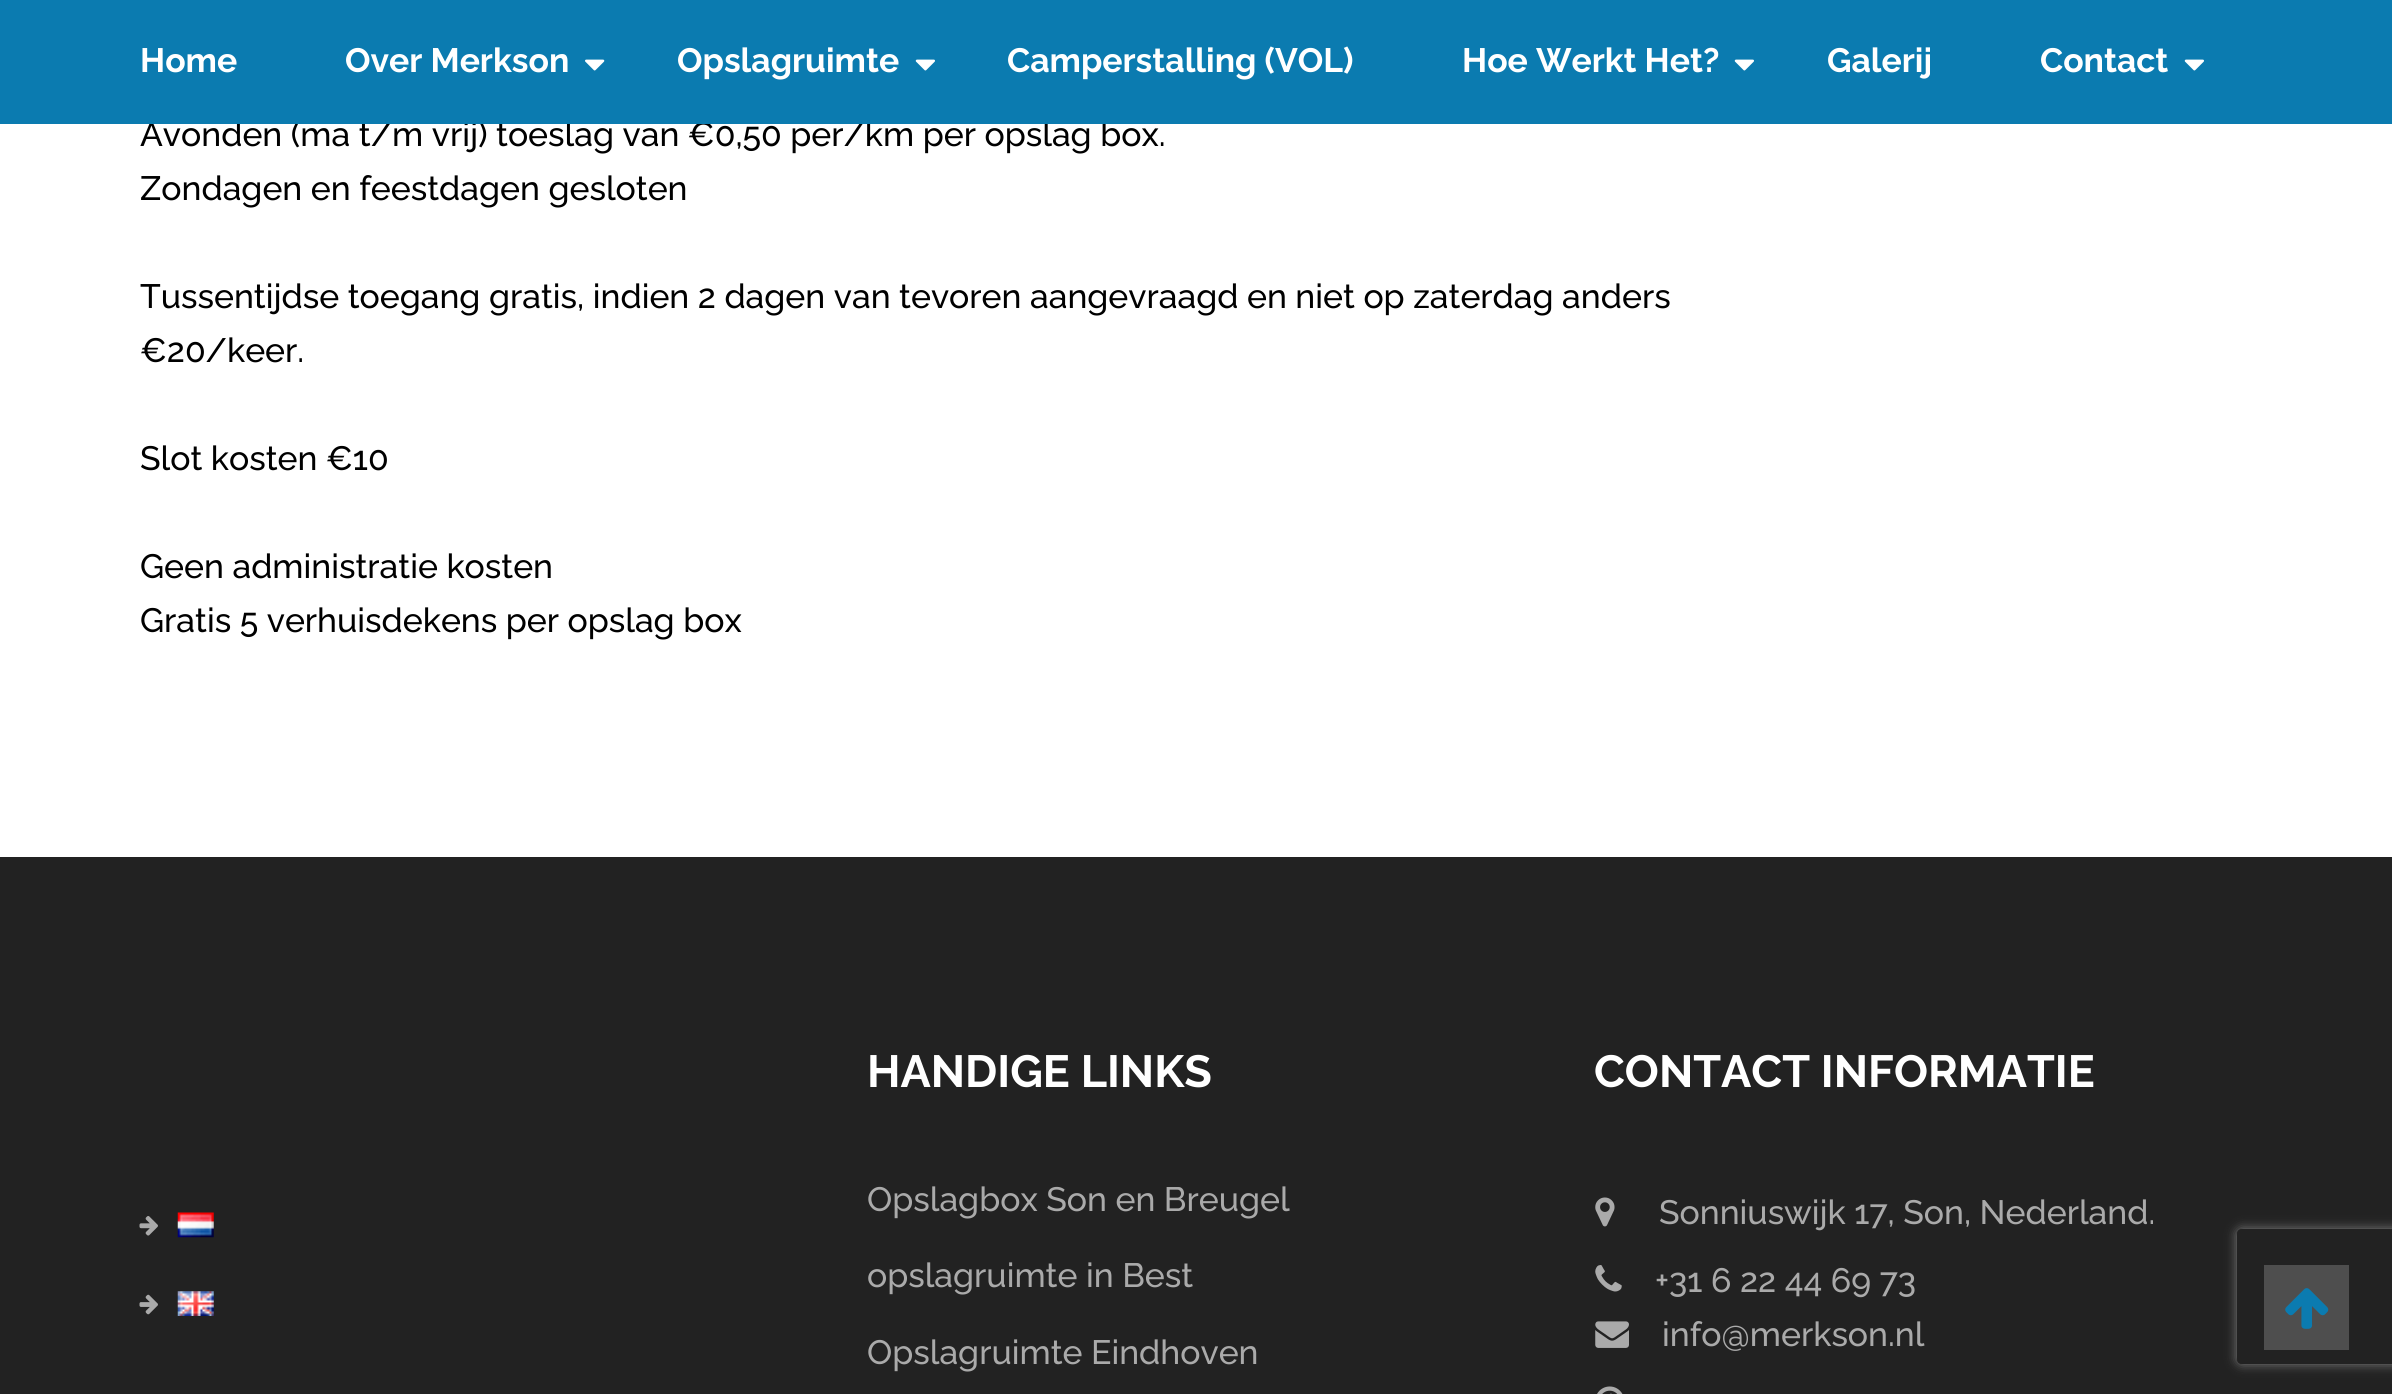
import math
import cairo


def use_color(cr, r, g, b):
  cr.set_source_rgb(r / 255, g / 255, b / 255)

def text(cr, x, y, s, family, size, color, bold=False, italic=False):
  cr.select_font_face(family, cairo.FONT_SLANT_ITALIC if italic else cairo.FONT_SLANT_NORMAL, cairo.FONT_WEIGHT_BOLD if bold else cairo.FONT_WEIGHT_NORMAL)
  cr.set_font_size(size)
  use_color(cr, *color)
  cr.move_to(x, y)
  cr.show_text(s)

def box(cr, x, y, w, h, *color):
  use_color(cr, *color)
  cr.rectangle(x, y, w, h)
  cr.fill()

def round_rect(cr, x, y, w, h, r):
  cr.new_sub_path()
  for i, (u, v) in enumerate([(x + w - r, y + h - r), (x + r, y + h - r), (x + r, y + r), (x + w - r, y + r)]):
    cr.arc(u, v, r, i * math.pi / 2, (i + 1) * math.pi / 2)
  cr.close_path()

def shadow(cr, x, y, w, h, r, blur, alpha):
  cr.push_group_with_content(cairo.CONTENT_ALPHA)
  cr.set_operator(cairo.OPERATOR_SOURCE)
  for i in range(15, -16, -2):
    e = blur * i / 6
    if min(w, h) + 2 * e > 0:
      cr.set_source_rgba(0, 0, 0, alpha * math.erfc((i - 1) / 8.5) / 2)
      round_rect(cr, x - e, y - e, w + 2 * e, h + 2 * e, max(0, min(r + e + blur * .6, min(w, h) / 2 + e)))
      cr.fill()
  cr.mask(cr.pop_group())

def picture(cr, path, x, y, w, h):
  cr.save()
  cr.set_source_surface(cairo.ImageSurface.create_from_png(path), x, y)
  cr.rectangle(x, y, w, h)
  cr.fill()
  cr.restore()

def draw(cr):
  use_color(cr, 255, 255, 255)
  cr.paint()
  box(cr, 0, 857, 2392, 537, 34, 34, 34)
  picture(cr, "img_03.png", 139, 1216, 19, 20)
  picture(cr, "img_04.png", 177, 1212, 37, 26)
  picture(cr, "img_05.png", 139, 1294, 19, 21)
  picture(cr, "img_06.png", 177, 1291, 37, 25)
  picture(cr, "img_07.png", 1595, 1197, 20, 30)
  picture(cr, "img_08.png", 1595, 1265, 27, 27)
  picture(cr, "img_09.png", 1595, 1321, 34, 27)
  picture(cr, "img_10.png", 1597, 1386, 26, 8)
  cr.save()
  cr.set_fill_rule(cairo.FILL_RULE_EVEN_ODD)
  cr.new_path()
  cr.move_to(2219, 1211)
  cr.line_to(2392, 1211)
  cr.line_to(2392, 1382)
  cr.line_to(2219, 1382)
  cr.close_path()
  cr.move_to(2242, 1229)
  cr.line_to(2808, 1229)
  cr.curve_to(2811, 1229, 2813, 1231, 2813, 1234)
  cr.line_to(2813, 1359)
  cr.curve_to(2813, 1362, 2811, 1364, 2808, 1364)
  cr.line_to(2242, 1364)
  cr.curve_to(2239, 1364, 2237, 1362, 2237, 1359)
  cr.line_to(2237, 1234)
  cr.curve_to(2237, 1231, 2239, 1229, 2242, 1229)
  cr.close_path()
  cr.clip()
  use_color(cr, 128, 128, 128)
  shadow(cr, 2237, 1229, 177, 135, 5, 5.5, 1)
  cr.restore()
  box(cr, 2264, 1265, 85, 85, 78, 78, 78)
  picture(cr, "img_11.png", 2285, 1288, 44, 41)
  text(cr, 140, 146, "Avonden (ma t/m vrij) toeslag van €0,50 per/km per opslag box.", "Raleway Medium", 33.75, (0, 0, 0))
  box(cr, 0, 0, 2392, 124, 11, 123, 176)
  picture(cr, "img_02.png", 2184, 59, 20, 12)
  text(cr, 2040, 72, "Contact", "Raleway", 33.75, (255, 255, 255), bold=True)
  text(cr, 1827, 72, "Galerij", "Raleway", 33.75, (255, 255, 255), bold=True)
  picture(cr, "img_02.png", 1734, 59, 20, 12)
  text(cr, 1462, 72, "Hoe Werkt Het?", "Raleway", 33.75, (255, 255, 255), bold=True)
  text(cr, 1007, 72, "Camperstalling (VOL)", "Raleway", 33.75, (255, 255, 255), bold=True)
  picture(cr, "img_02.png", 915, 59, 20, 12)
  text(cr, 677, 72, "Opslagruimte", "Raleway", 33.75, (255, 255, 255), bold=True)
  picture(cr, "img_01.png", 585, 59, 20, 12)
  text(cr, 345, 72, "Over Merkson", "Raleway", 33.75, (255, 255, 255), bold=True)
  text(cr, 140, 72, "Home", "Raleway", 33.75, (255, 255, 255), bold=True)
  text(cr, 140, 200, "Zondagen en feestdagen gesloten", "Raleway Medium", 33.75, (0, 0, 0))
  text(cr, 140, 308, "Tussentijdse toegang gratis, indien 2 dagen van tevoren aangevraagd en niet op zaterdag anders", "Raleway Medium", 33.75, (0, 0, 0))
  text(cr, 140, 362, "€20/keer.", "Raleway Medium", 33.75, (0, 0, 0))
  text(cr, 140, 470, "Slot kosten €10", "Raleway Medium", 33.75, (0, 0, 0))
  text(cr, 140, 578, "Geen administratie kosten", "Raleway Medium", 33.75, (0, 0, 0))
  text(cr, 140, 632, "Gratis 5 verhuisdekens per opslag box", "Raleway Medium", 33.75, (0, 0, 0))
  text(cr, 867, 1087, "HANDIGE LINKS", "Raleway", 45, (255, 255, 255), bold=True)
  text(cr, 867, 1211, "Opslagbox Son en Breugel", "Raleway Medium", 33.75, (170, 170, 170))
  text(cr, 867, 1287, "opslagruimte in Best", "Raleway Medium", 33.75, (170, 170, 170))
  text(cr, 867, 1364, "Opslagruimte Eindhoven", "Raleway Medium", 33.75, (170, 170, 170))
  text(cr, 1594, 1087, "CONTACT INFORMATIE", "Raleway", 45, (255, 255, 255), bold=True)
  text(cr, 1659, 1224, "Sonniuswijk 17, Son, Nederland.", "Raleway Medium", 33.75, (170, 170, 170))
  text(cr, 1655, 1292, "+31 6 22 44 69 73", "Raleway Medium", 33.75, (170, 170, 170))
  text(cr, 1662, 1346, "info@merkson.nl", "Raleway Medium", 33.75, (170, 170, 170))


surface = cairo.ImageSurface(cairo.FORMAT_RGB24, 2392, 1394)
cr = cairo.Context(surface)
options = cairo.FontOptions()
options.set_hint_metrics(cairo.HINT_METRICS_OFF)
options.set_hint_style(cairo.HINT_STYLE_NONE)
cr.set_font_options(options)
cr.set_miter_limit(4)
draw(cr)
surface.write_to_png("out.png")
